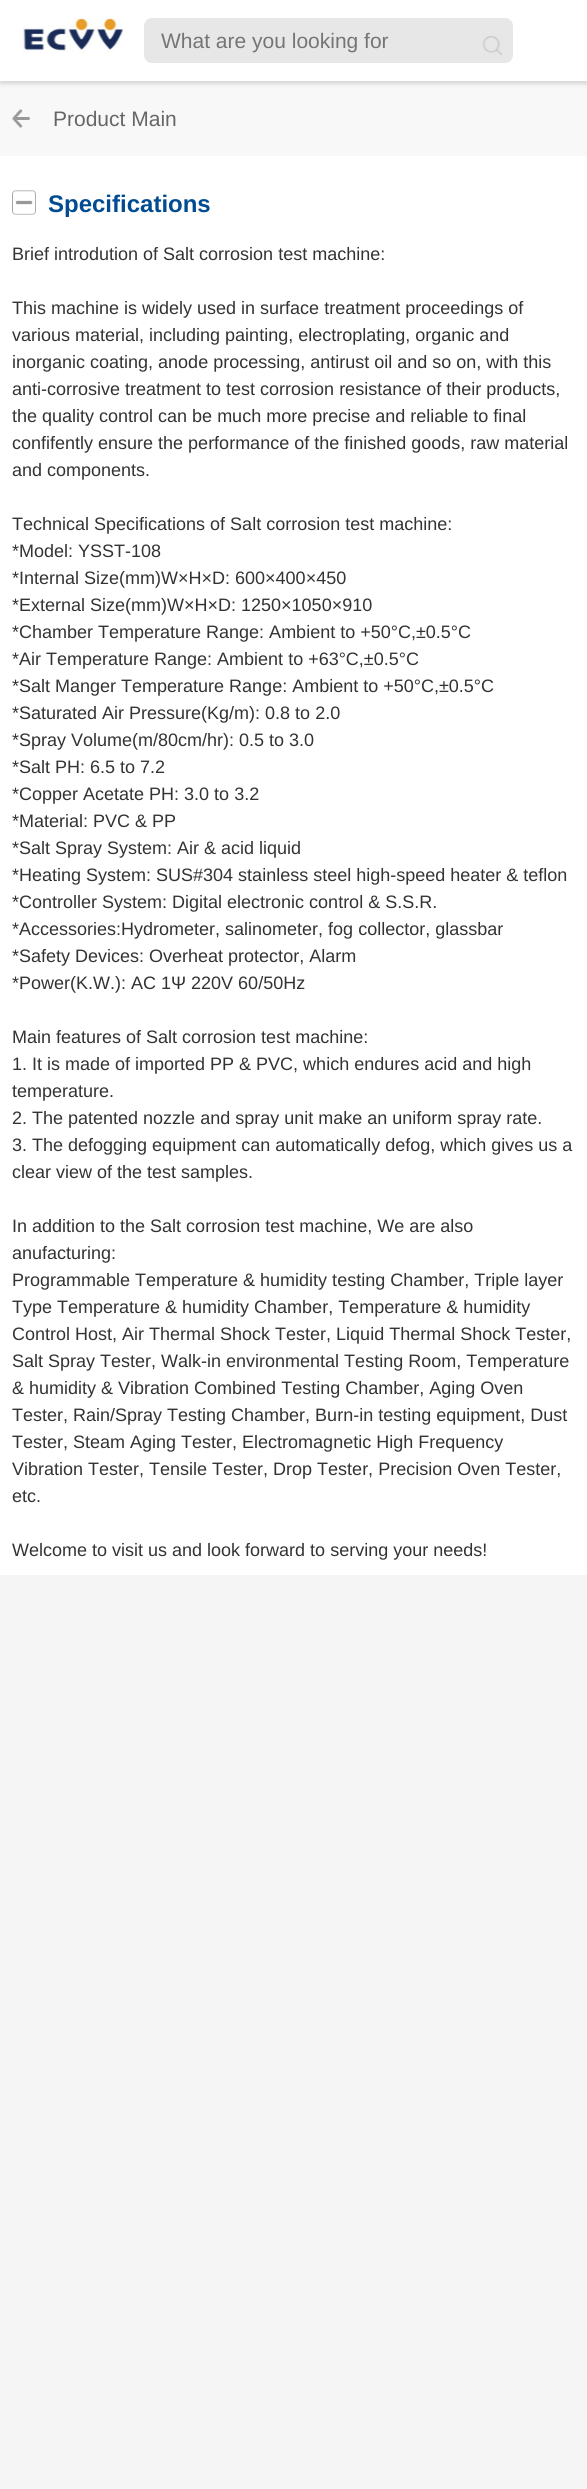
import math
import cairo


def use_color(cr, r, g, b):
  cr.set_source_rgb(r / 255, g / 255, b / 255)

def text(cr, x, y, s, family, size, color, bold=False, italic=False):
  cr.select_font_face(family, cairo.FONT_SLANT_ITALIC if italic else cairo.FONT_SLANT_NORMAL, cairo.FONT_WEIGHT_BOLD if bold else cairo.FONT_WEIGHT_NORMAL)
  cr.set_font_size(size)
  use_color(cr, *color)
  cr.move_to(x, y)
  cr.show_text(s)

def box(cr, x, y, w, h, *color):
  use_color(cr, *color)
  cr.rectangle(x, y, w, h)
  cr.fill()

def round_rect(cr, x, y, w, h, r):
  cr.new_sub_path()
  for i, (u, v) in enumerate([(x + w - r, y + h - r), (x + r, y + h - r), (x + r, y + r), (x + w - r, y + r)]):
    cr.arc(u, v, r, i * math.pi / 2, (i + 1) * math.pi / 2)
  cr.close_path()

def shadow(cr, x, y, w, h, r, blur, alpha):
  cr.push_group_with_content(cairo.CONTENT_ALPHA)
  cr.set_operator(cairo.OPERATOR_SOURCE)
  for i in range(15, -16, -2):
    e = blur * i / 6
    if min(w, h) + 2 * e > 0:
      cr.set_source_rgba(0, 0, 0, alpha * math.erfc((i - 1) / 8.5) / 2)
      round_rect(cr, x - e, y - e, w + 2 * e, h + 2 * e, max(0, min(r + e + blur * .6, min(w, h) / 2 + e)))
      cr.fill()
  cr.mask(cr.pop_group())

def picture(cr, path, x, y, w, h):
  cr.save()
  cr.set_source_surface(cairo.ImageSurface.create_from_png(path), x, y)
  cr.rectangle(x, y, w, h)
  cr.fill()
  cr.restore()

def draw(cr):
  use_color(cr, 245, 245, 245)
  cr.paint()
  box(cr, 0, 0, 587, 1575, 255, 255, 255)
  box(cr, 0, 81, 587, 75, 248, 248, 248)
  cr.save()
  cr.rectangle(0, 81, 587, 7)
  cr.clip()
  use_color(cr, 217, 215, 215)
  shadow(cr, 0, 3, 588, 81, 0, 2, 1)
  cr.restore()
  picture(cr, "img_01.png", 22, 18, 102, 35)
  use_color(cr, 231, 231, 231)
  round_rect(cr, 144, 18, 369, 45, 8)
  cr.fill()
  picture(cr, "img_02.png", 482, 36, 21, 19)
  picture(cr, "img_03.png", 12, 109, 18, 19)
  picture(cr, "img_04.png", 12, 190, 24, 25)
  text(cr, 161, 48, "What are you looking for", "Liberation Sans", 21, (117, 117, 117))
  text(cr, 53, 126, "Product Main", "Liberation Sans", 21, (102, 102, 102))
  text(cr, 48, 212, "Specifications", "Liberation Sans", 24, (0, 75, 145), bold=True)
  text(cr, 12, 260, "Brief introdution of Salt corrosion test machine:", "Liberation Sans", 18, (51, 51, 51))
  text(cr, 12, 314, "This machine is widely used in surface treatment proceedings of", "Liberation Sans", 18, (51, 51, 51))
  text(cr, 12, 341, "various material, including painting, electroplating, organic and", "Liberation Sans", 18, (51, 51, 51))
  text(cr, 12, 368, "inorganic coating, anode processing, antirust oil and so on, with this", "Liberation Sans", 18, (51, 51, 51))
  text(cr, 12, 395, "anti-corrosive treatment to test corrosion resistance of their products,", "Liberation Sans", 18, (51, 51, 51))
  text(cr, 12, 422, "the quality control can be much more precise and reliable to final", "Liberation Sans", 18, (51, 51, 51))
  text(cr, 12, 449, "confifently ensure the performance of the finished goods, raw material", "Liberation Sans", 18, (51, 51, 51))
  text(cr, 12, 476, "and components.", "Liberation Sans", 18, (51, 51, 51))
  text(cr, 12, 530, "Technical Specifications of Salt corrosion test machine:", "Liberation Sans", 18, (51, 51, 51))
  text(cr, 12, 557, "*Model: YSST-108", "Liberation Sans", 18, (51, 51, 51))
  text(cr, 12, 584, "*Internal Size(mm)W×H×D: 600×400×450", "Liberation Sans", 18, (51, 51, 51))
  text(cr, 12, 611, "*External Size(mm)W×H×D: 1250×1050×910", "Liberation Sans", 18, (51, 51, 51))
  text(cr, 12, 638, "*Chamber Temperature Range: Ambient to +50°C,±0.5°C", "Liberation Sans", 18, (51, 51, 51))
  text(cr, 12, 665, "*Air Temperature Range: Ambient to +63°C,±0.5°C", "Liberation Sans", 18, (51, 51, 51))
  text(cr, 12, 692, "*Salt Manger Temperature Range: Ambient to +50°C,±0.5°C", "Liberation Sans", 18, (51, 51, 51))
  text(cr, 12, 719, "*Saturated Air Pressure(Kg/m): 0.8 to 2.0", "Liberation Sans", 18, (51, 51, 51))
  text(cr, 12, 746, "*Spray Volume(m/80cm/hr): 0.5 to 3.0", "Liberation Sans", 18, (51, 51, 51))
  text(cr, 12, 773, "*Salt PH: 6.5 to 7.2", "Liberation Sans", 18, (51, 51, 51))
  text(cr, 12, 800, "*Copper Acetate PH: 3.0 to 3.2", "Liberation Sans", 18, (51, 51, 51))
  text(cr, 12, 827, "*Material: PVC & PP", "Liberation Sans", 18, (51, 51, 51))
  text(cr, 12, 854, "*Salt Spray System: Air & acid liquid", "Liberation Sans", 18, (51, 51, 51))
  text(cr, 12, 881, "*Heating System: SUS#304 stainless steel high-speed heater & teflon", "Liberation Sans", 18, (51, 51, 51))
  text(cr, 12, 908, "*Controller System: Digital electronic control & S.S.R.", "Liberation Sans", 18, (51, 51, 51))
  text(cr, 12, 935, "*Accessories:Hydrometer, salinometer, fog collector, glassbar", "Liberation Sans", 18, (51, 51, 51))
  text(cr, 12, 962, "*Safety Devices: Overheat protector, Alarm", "Liberation Sans", 18, (51, 51, 51))
  text(cr, 12, 989, "*Power(K.W.): AC 1Ψ 220V 60/50Hz", "Liberation Sans", 18, (51, 51, 51))
  text(cr, 12, 1043, "Main features of Salt corrosion test machine:", "Liberation Sans", 18, (51, 51, 51))
  text(cr, 12, 1070, "1. It is made of imported PP & PVC, which endures acid and high", "Liberation Sans", 18, (51, 51, 51))
  text(cr, 12, 1097, "temperature.", "Liberation Sans", 18, (51, 51, 51))
  text(cr, 12, 1124, "2. The patented nozzle and spray unit make an uniform spray rate.", "Liberation Sans", 18, (51, 51, 51))
  text(cr, 12, 1151, "3. The defogging equipment can automatically defog, which gives us a", "Liberation Sans", 18, (51, 51, 51))
  text(cr, 12, 1178, "clear view of the test samples.", "Liberation Sans", 18, (51, 51, 51))
  text(cr, 12, 1232, "In addition to the Salt corrosion test machine, We are also", "Liberation Sans", 18, (51, 51, 51))
  text(cr, 12, 1259, "anufacturing:", "Liberation Sans", 18, (51, 51, 51))
  text(cr, 12, 1286, "Programmable Temperature & humidity testing Chamber, Triple layer", "Liberation Sans", 18, (51, 51, 51))
  text(cr, 12, 1313, "Type Temperature & humidity Chamber, Temperature & humidity", "Liberation Sans", 18, (51, 51, 51))
  text(cr, 12, 1340, "Control Host, Air Thermal Shock Tester, Liquid Thermal Shock Tester,", "Liberation Sans", 18, (51, 51, 51))
  text(cr, 12, 1367, "Salt Spray Tester, Walk-in environmental Testing Room, Temperature", "Liberation Sans", 18, (51, 51, 51))
  text(cr, 12, 1394, "& humidity & Vibration Combined Testing Chamber, Aging Oven", "Liberation Sans", 18, (51, 51, 51))
  text(cr, 12, 1421, "Tester, Rain/Spray Testing Chamber, Burn-in testing equipment, Dust", "Liberation Sans", 18, (51, 51, 51))
  text(cr, 12, 1448, "Tester, Steam Aging Tester, Electromagnetic High Frequency", "Liberation Sans", 18, (51, 51, 51))
  text(cr, 12, 1475, "Vibration Tester, Tensile Tester, Drop Tester, Precision Oven Tester,", "Liberation Sans", 18, (51, 51, 51))
  text(cr, 12, 1502, "etc.", "Liberation Sans", 18, (51, 51, 51))
  text(cr, 12, 1556, "Welcome to visit us and look forward to serving your needs!", "Liberation Sans", 18, (51, 51, 51))


surface = cairo.ImageSurface(cairo.FORMAT_RGB24, 587, 2489)
cr = cairo.Context(surface)
options = cairo.FontOptions()
options.set_hint_metrics(cairo.HINT_METRICS_OFF)
options.set_hint_style(cairo.HINT_STYLE_NONE)
cr.set_font_options(options)
cr.set_miter_limit(4)
draw(cr)
surface.write_to_png("out.png")
